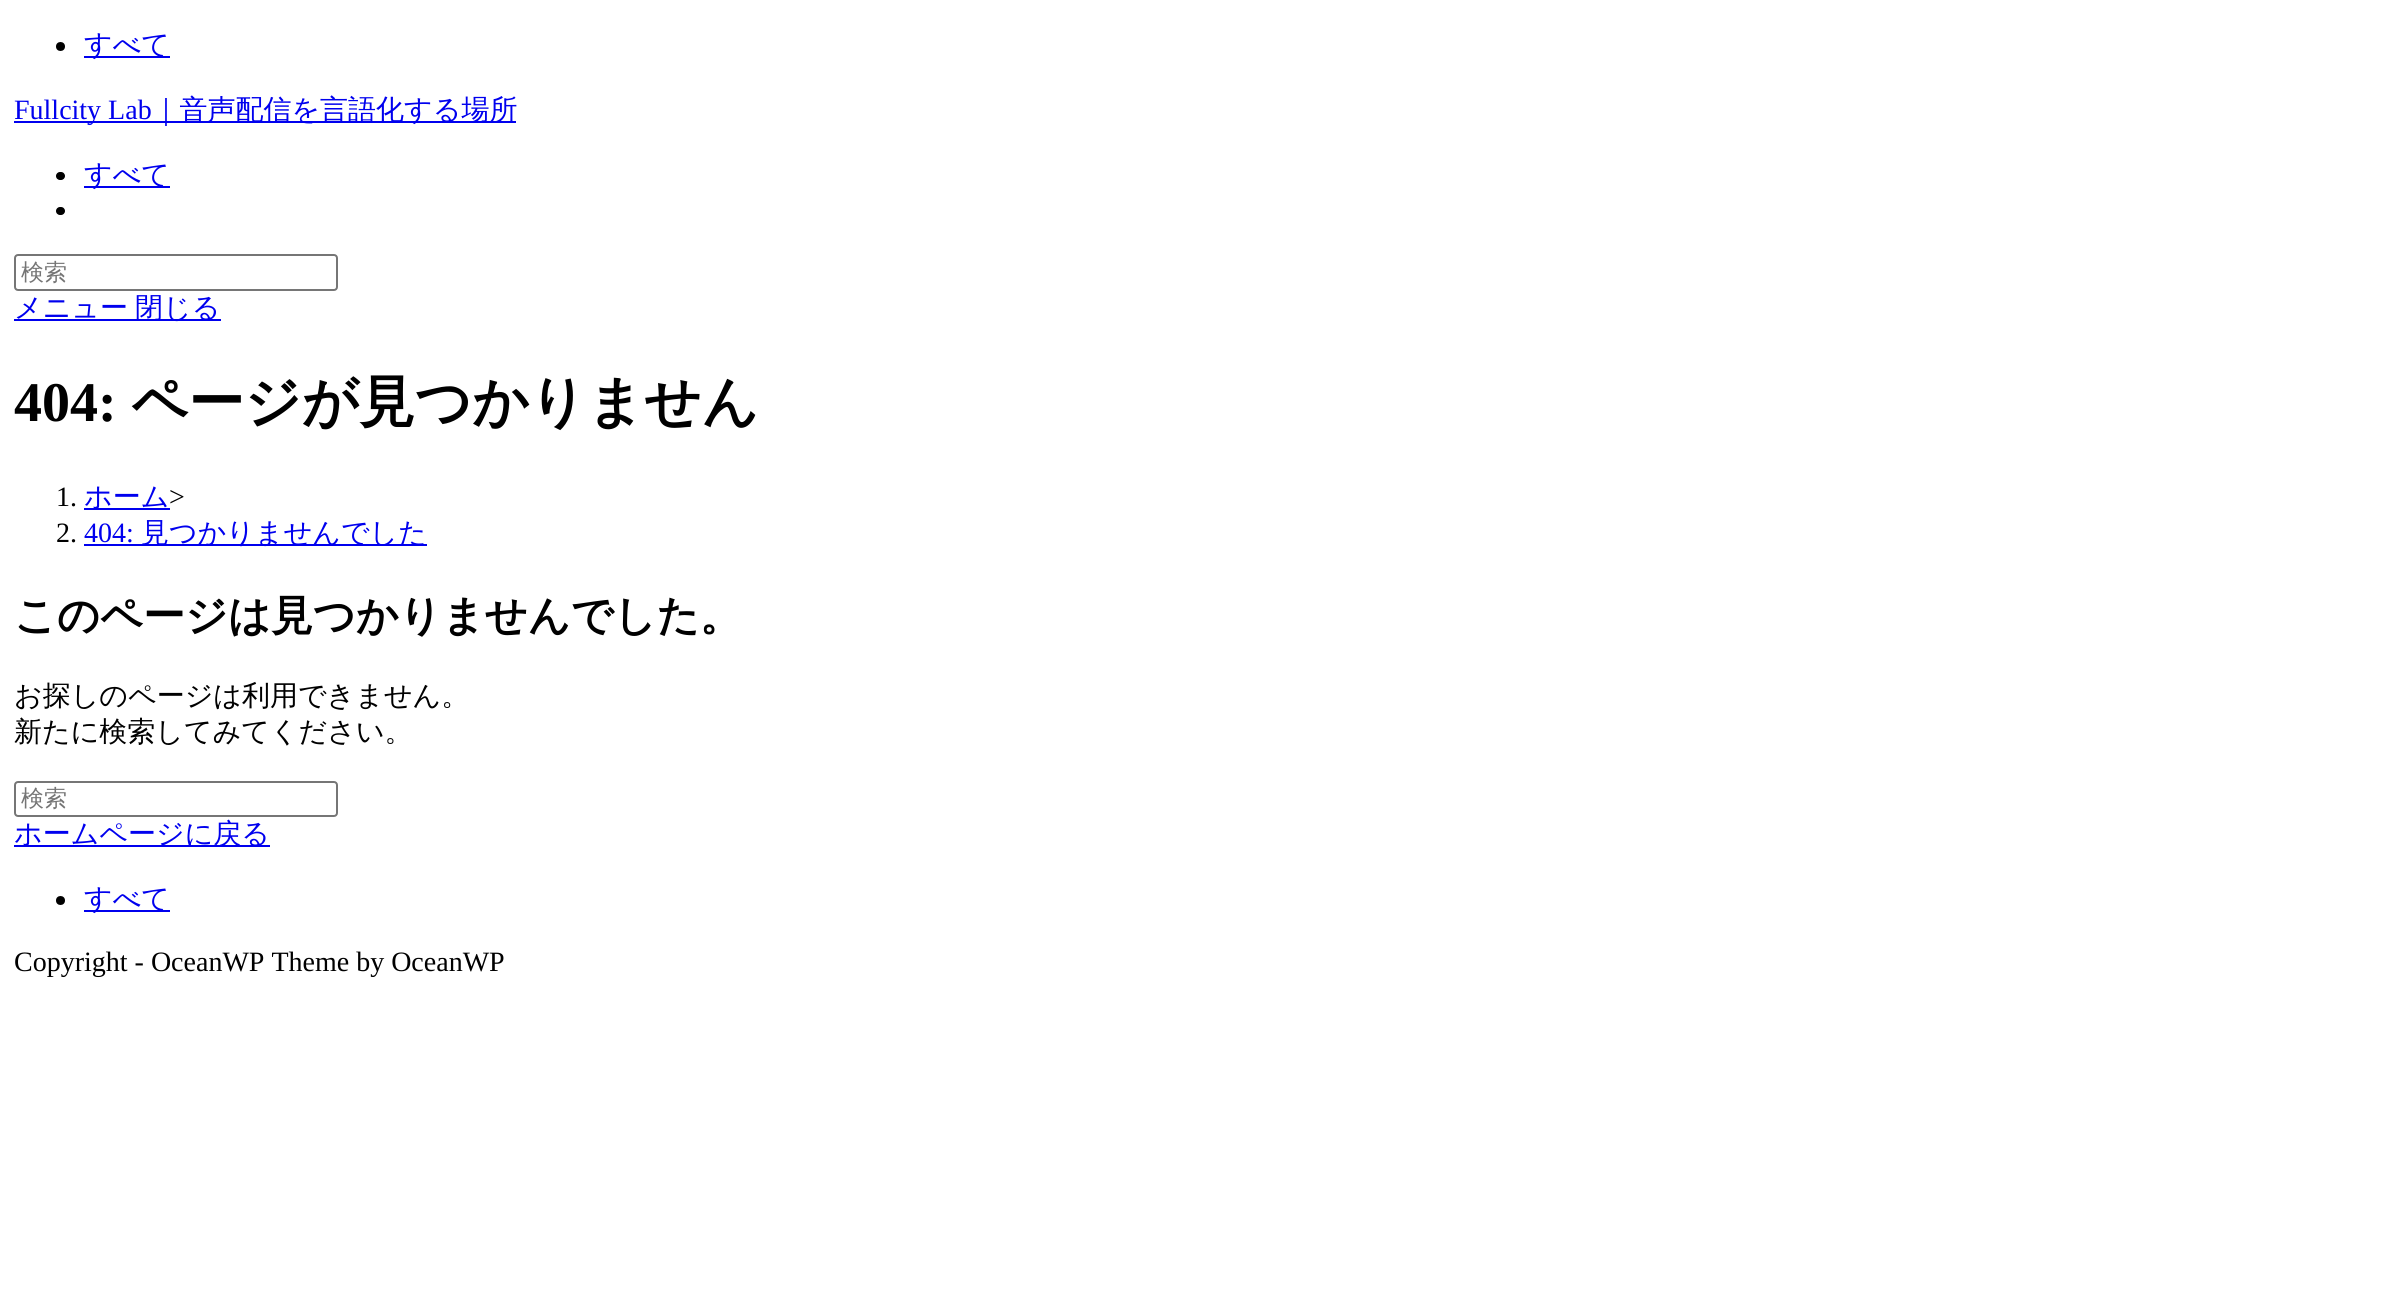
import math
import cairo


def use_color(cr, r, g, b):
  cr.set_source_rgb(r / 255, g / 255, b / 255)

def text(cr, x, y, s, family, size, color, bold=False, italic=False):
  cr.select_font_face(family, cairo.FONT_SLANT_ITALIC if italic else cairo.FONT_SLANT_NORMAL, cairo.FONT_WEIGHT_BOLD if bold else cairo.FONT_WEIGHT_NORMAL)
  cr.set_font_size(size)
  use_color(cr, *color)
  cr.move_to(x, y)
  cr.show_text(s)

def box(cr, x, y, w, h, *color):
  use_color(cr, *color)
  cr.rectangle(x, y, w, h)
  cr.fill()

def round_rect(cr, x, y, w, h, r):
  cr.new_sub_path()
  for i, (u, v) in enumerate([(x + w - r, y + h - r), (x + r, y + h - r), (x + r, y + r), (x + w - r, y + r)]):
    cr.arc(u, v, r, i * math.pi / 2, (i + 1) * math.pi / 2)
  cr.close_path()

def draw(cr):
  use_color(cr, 255, 255, 255)
  cr.paint()
  use_color(cr, 0, 0, 0)
  cr.arc(60.5, 46.5, 4.5, 0, 2 * math.pi)
  cr.fill()
  box(cr, 84, 56, 86, 2, 0, 0, 238)
  box(cr, 14, 121, 502, 2, 0, 0, 238)
  use_color(cr, 0, 0, 0)
  round_rect(cr, 56, 172, 9, 8, 4)
  cr.fill()
  box(cr, 84, 186, 86, 2, 0, 0, 238)
  use_color(cr, 0, 0, 0)
  round_rect(cr, 56, 207, 9, 8, 4)
  cr.fill()
  round_rect(cr, 15, 255, 322, 35, 3)
  use_color(cr, 118, 118, 118)
  cr.stroke()
  box(cr, 14, 319, 207, 2, 0, 0, 238)
  box(cr, 84, 508, 86, 2, 0, 0, 238)
  box(cr, 84, 544, 343, 2, 0, 0, 238)
  round_rect(cr, 15, 782, 322, 34, 3)
  use_color(cr, 118, 118, 118)
  cr.stroke()
  box(cr, 14, 845, 256, 2, 0, 0, 238)
  use_color(cr, 0, 0, 0)
  cr.arc(60.5, 900.5, 4.5, 0, 2 * math.pi)
  cr.fill()
  box(cr, 84, 910, 86, 2, 0, 0, 238)
  text(cr, 84, 54, "すべて", "WenQuanYi Zen Hei Medium", 28, (0, 0, 238))
  text(cr, 14, 119, "Fullcity Lab", "Liberation Serif", 28, (0, 0, 238))
  text(cr, 152, 119, "｜音声配信を言語化する場所", "WenQuanYi Zen Hei Medium", 28, (0, 0, 238))
  text(cr, 84, 184, "すべて", "WenQuanYi Zen Hei Medium", 28, (0, 0, 238))
  text(cr, 21, 280, "検索", "WenQuanYi Zen Hei Medium", 23, (117, 117, 117))
  text(cr, 14, 317, "メニュー", "WenQuanYi Zen Hei Medium", 28, (0, 0, 238))
  text(cr, 135, 317, "閉じる", "WenQuanYi Zen Hei Medium", 28, (0, 0, 238))
  text(cr, 14, 421, "404:", "Liberation Serif", 56, (0, 0, 0), bold=True)
  text(cr, 131, 421, "ページが見つかりません", "WenQuanYi Zen Hei", 56, (0, 0, 0), bold=True)
  text(cr, 56, 506, "1.", "Liberation Serif", 28, (0, 0, 0))
  text(cr, 84, 506, "ホーム", "WenQuanYi Zen Hei Medium", 28, (0, 0, 238))
  text(cr, 169, 506, ">", "Liberation Serif", 28, (0, 0, 0))
  text(cr, 56, 542, "2.", "Liberation Serif", 28, (0, 0, 0))
  text(cr, 84, 542, "404:", "Liberation Serif", 28, (0, 0, 238))
  text(cr, 141, 542, "見つかりませんでした", "WenQuanYi Zen Hei Medium", 28, (0, 0, 238))
  text(cr, 14, 630, "このページは見つかりませんでした。", "WenQuanYi Zen Hei", 42, (0, 0, 0), bold=True)
  text(cr, 14, 705, "お探しのページは利用できません。", "WenQuanYi Zen Hei Medium", 28, (0, 0, 0))
  text(cr, 14, 741, "新たに検索してみてください。", "WenQuanYi Zen Hei Medium", 28, (0, 0, 0))
  text(cr, 21, 806, "検索", "WenQuanYi Zen Hei Medium", 23, (117, 117, 117))
  text(cr, 14, 843, "ホームページに戻る", "WenQuanYi Zen Hei Medium", 28, (0, 0, 238))
  text(cr, 84, 908, "すべて", "WenQuanYi Zen Hei Medium", 28, (0, 0, 238))
  text(cr, 14, 971, "Copyright - OceanWP Theme by OceanWP", "Liberation Serif", 28, (0, 0, 0))


surface = cairo.ImageSurface(cairo.FORMAT_RGB24, 2382, 1300)
cr = cairo.Context(surface)
options = cairo.FontOptions()
options.set_hint_metrics(cairo.HINT_METRICS_OFF)
options.set_hint_style(cairo.HINT_STYLE_NONE)
cr.set_font_options(options)
cr.set_miter_limit(4)
draw(cr)
surface.write_to_png("out.png")
